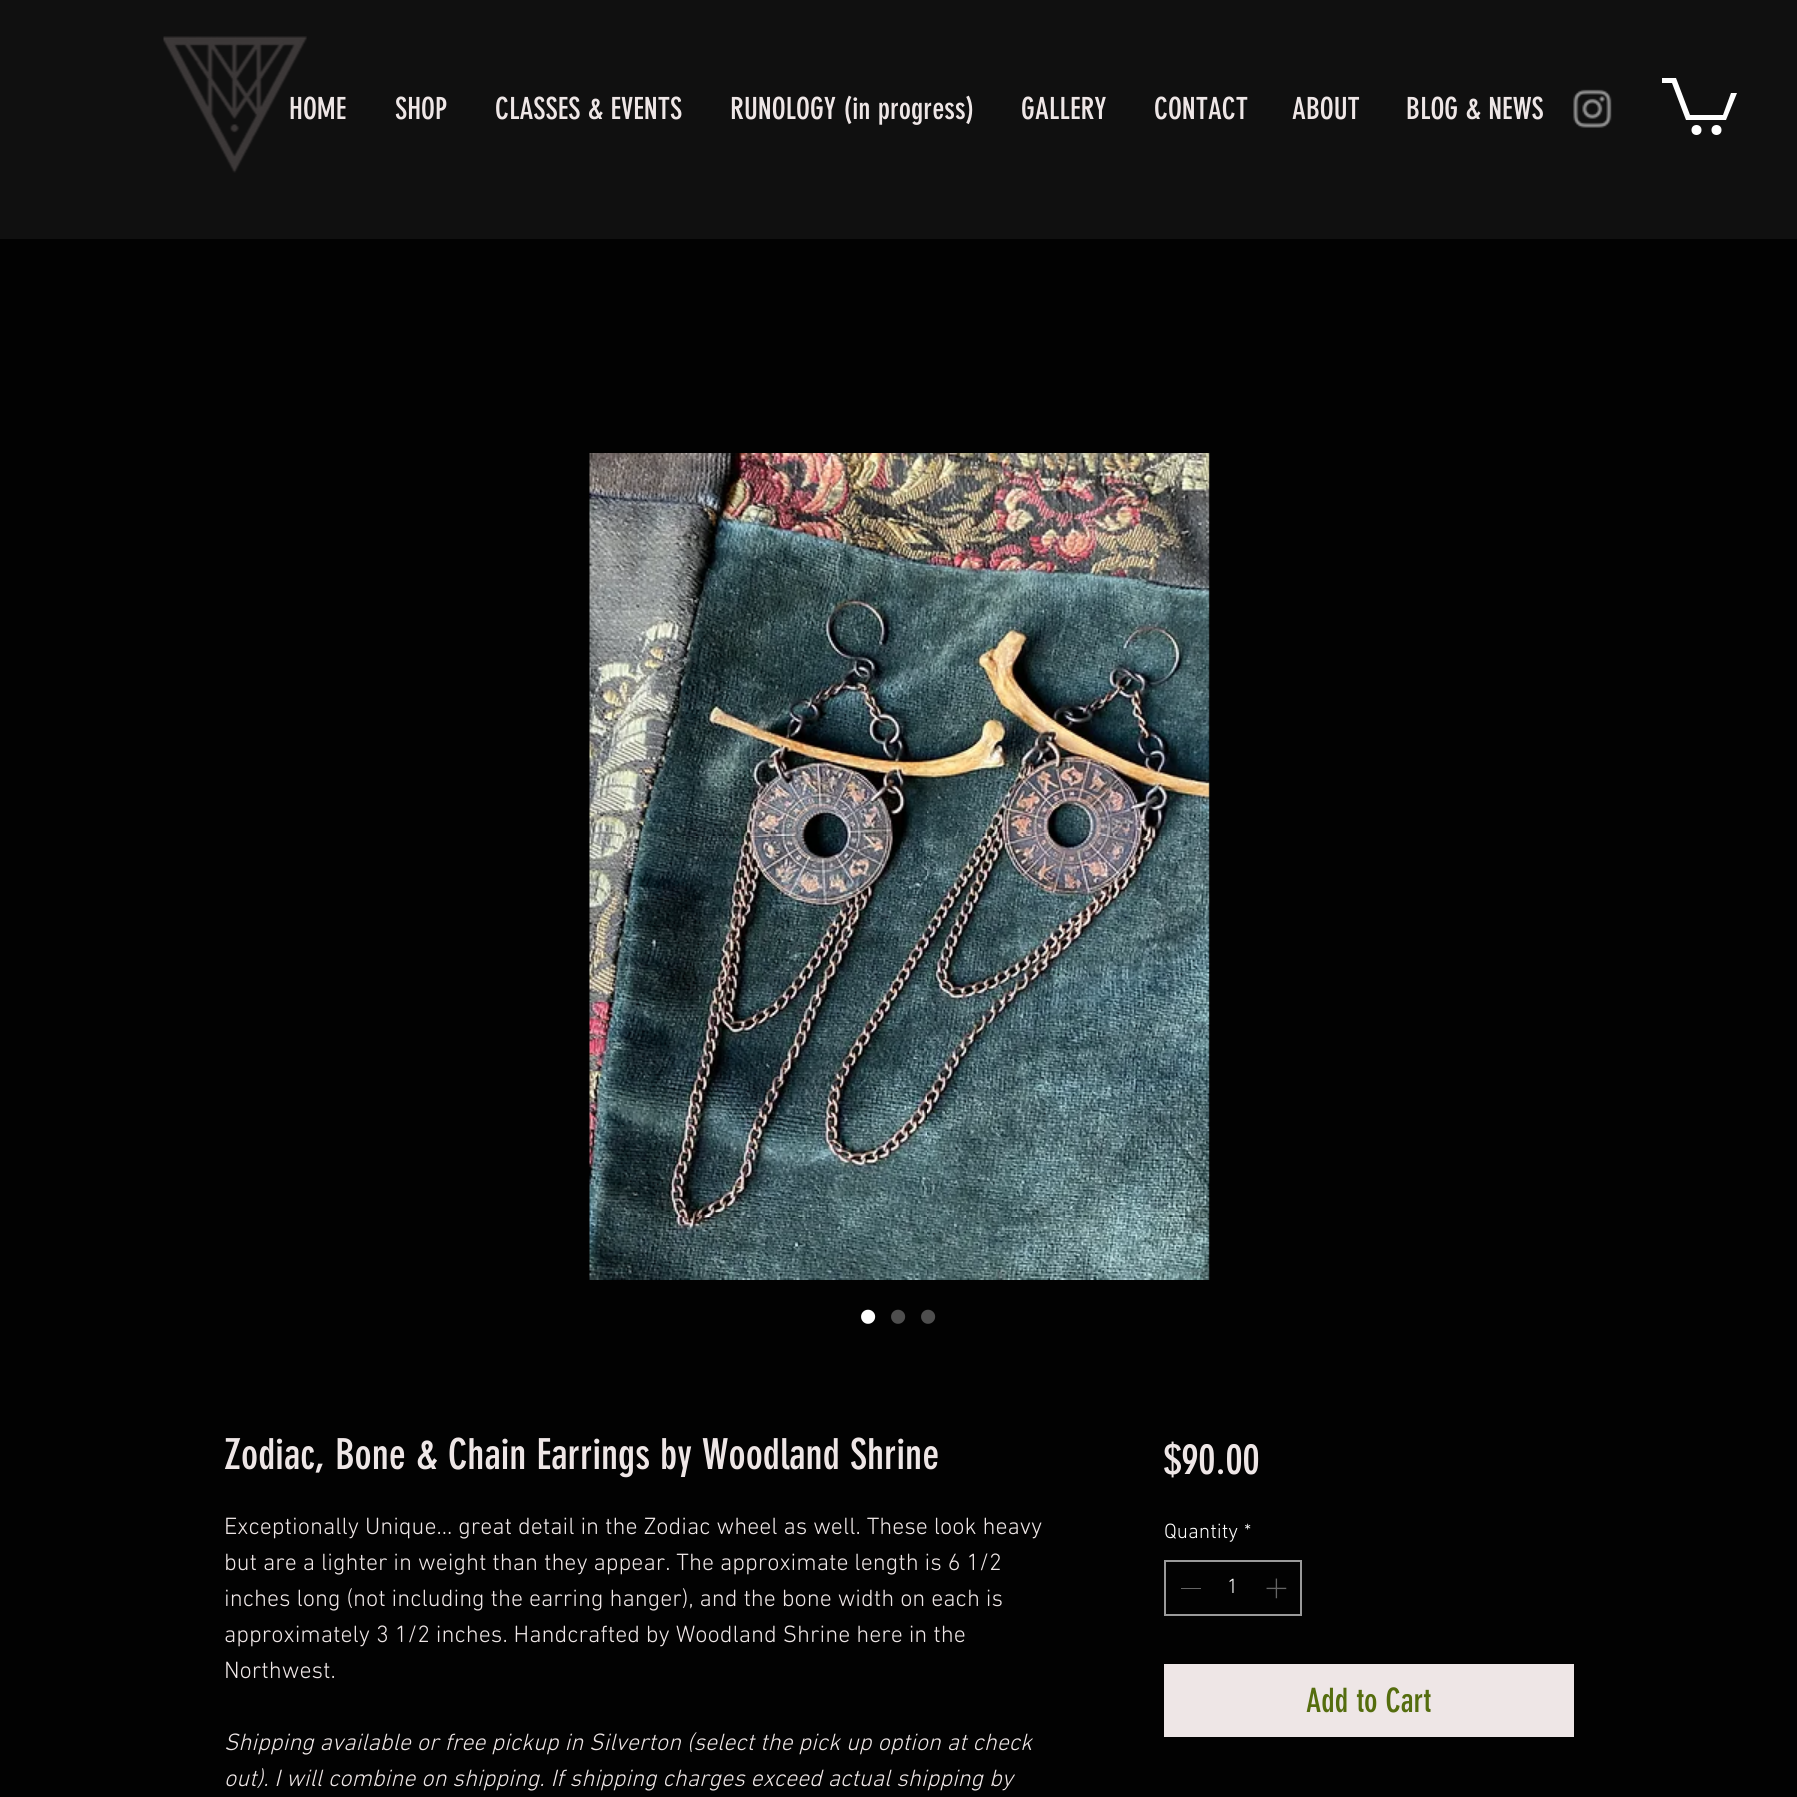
import math
import cairo


def use_color(cr, r, g, b):
  cr.set_source_rgb(r / 255, g / 255, b / 255)

def text(cr, x, y, s, family, size, color, bold=False, italic=False):
  cr.select_font_face(family, cairo.FONT_SLANT_ITALIC if italic else cairo.FONT_SLANT_NORMAL, cairo.FONT_WEIGHT_BOLD if bold else cairo.FONT_WEIGHT_NORMAL)
  cr.set_font_size(size)
  use_color(cr, *color)
  cr.move_to(x, y)
  cr.show_text(s)

def box(cr, x, y, w, h, *color):
  use_color(cr, *color)
  cr.rectangle(x, y, w, h)
  cr.fill()

def picture(cr, path, x, y, w, h):
  cr.save()
  cr.set_source_surface(cairo.ImageSurface.create_from_png(path), x, y)
  cr.rectangle(x, y, w, h)
  cr.fill()
  cr.restore()

def draw(cr):
  use_color(cr, 2, 2, 2)
  cr.paint()
  box(cr, 0, 0, 1797, 239, 16, 16, 16)
  picture(cr, "img_01.png", 163, 36, 144, 137)
  picture(cr, "img_02.png", 1573, 89, 39, 39)
  use_color(cr, 255, 255, 255)
  cr.new_path()
  cr.move_to(1737, 93)
  cr.line_to(1726, 120)
  cr.line_to(1686, 120)
  cr.line_to(1672, 83)
  cr.line_to(1662, 83)
  cr.line_to(1662, 78)
  cr.line_to(1676, 78)
  cr.line_to(1690, 115)
  cr.line_to(1723, 115)
  cr.line_to(1731, 93)
  cr.fill()
  cr.arc(1716.5, 130, 5, 0, 2 * math.pi)
  cr.fill()
  cr.arc(1696.5, 130, 5, 0, 2 * math.pi)
  cr.fill()
  picture(cr, "img_03.png", 589, 453, 621, 827)
  cr.rectangle(1165, 1561, 136, 54)
  use_color(cr, 154, 154, 154)
  cr.stroke()
  box(cr, 1181, 1588, 20, 1, 101, 101, 101)
  picture(cr, "img_04.png", 1266, 1578, 21, 21)
  box(cr, 1164, 1664, 410, 73, 238, 230, 230)
  text(cr, 289, 119, "HOME", "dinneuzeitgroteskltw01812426", 30, (238, 230, 230))
  text(cr, 395, 119, "SHOP", "dinneuzeitgroteskltw01812426", 30, (238, 230, 230))
  text(cr, 495, 119, "CLASSES & EVENTS", "dinneuzeitgroteskltw01812426", 30, (238, 230, 230))
  text(cr, 730, 119, "RUNOLOGY (in progress)", "dinneuzeitgroteskltw01812426", 30, (238, 230, 230))
  text(cr, 1021, 119, "GALLERY", "dinneuzeitgroteskltw01812426", 30, (238, 230, 230))
  text(cr, 1154, 119, "CONTACT", "dinneuzeitgroteskltw01812426", 30, (238, 230, 230))
  text(cr, 1292, 119, "ABOUT", "dinneuzeitgroteskltw01812426", 30, (238, 230, 230))
  text(cr, 1406, 119, "BLOG & NEWS", "dinneuzeitgroteskltw01812426", 30, (238, 230, 230))
  text(cr, 859, 1334, "•", "Liberation Sans", 52, (255, 255, 255))
  text(cr, 889, 1334, "•", "Liberation Sans", 52, (78, 78, 78))
  text(cr, 919, 1334, "•", "Liberation Sans", 52, (78, 78, 78))
  text(cr, 224, 1469, "Zodiac, Bone & Chain Earrings by Woodland Shrine", "dinneuzeitgroteskltw01812426", 42, (238, 230, 230))
  text(cr, 224, 1534, "Exceptionally Unique... great detail in the Zodiac wheel as well. These look heavy", "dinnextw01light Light", 24, (238, 230, 230))
  text(cr, 224, 1570, "but are a lighter in weight than they appear. The approximate length is 6 1/2", "dinnextw01light Light", 24, (238, 230, 230))
  text(cr, 224, 1606, "inches long (not including the earring hanger), and the bone width on each is", "dinnextw01light Light", 24, (238, 230, 230))
  text(cr, 224, 1642, "approximately 3 1/2 inches. Handcrafted by Woodland Shrine here in the", "dinnextw01light Light", 24, (238, 230, 230))
  text(cr, 224, 1678, "Northwest.", "dinnextw01light Light", 24, (238, 230, 230))
  text(cr, 224, 1750, "Shipping available or free pickup in Silverton (select the pick up option at check", "dinnextw01light Light", 24, (238, 230, 230), italic=True)
  text(cr, 224, 1786, "out). I will combine on shipping. If shipping charges exceed actual shipping by", "dinnextw01light Light", 24, (238, 230, 230), italic=True)
  text(cr, 1164, 1474, "$90.00", "dinneuzeitgroteskltw01812426", 42, (238, 230, 230))
  text(cr, 1164, 1538, "Quantity", "dinnextw01light Light", 21, (255, 255, 255))
  text(cr, 1244, 1538, "*", "dinnextw01light Light", 21, (255, 255, 255))
  text(cr, 1227, 1593, "1", "dinnextw01light Light", 21, (255, 255, 255))
  text(cr, 1306, 1712, "Add to Cart", "dinneuzeitgroteskltw01812426", 33, (85, 109, 14))


surface = cairo.ImageSurface(cairo.FORMAT_RGB24, 1797, 1797)
cr = cairo.Context(surface)
options = cairo.FontOptions()
options.set_hint_metrics(cairo.HINT_METRICS_OFF)
options.set_hint_style(cairo.HINT_STYLE_NONE)
cr.set_font_options(options)
cr.set_miter_limit(4)
draw(cr)
surface.write_to_png("out.png")
